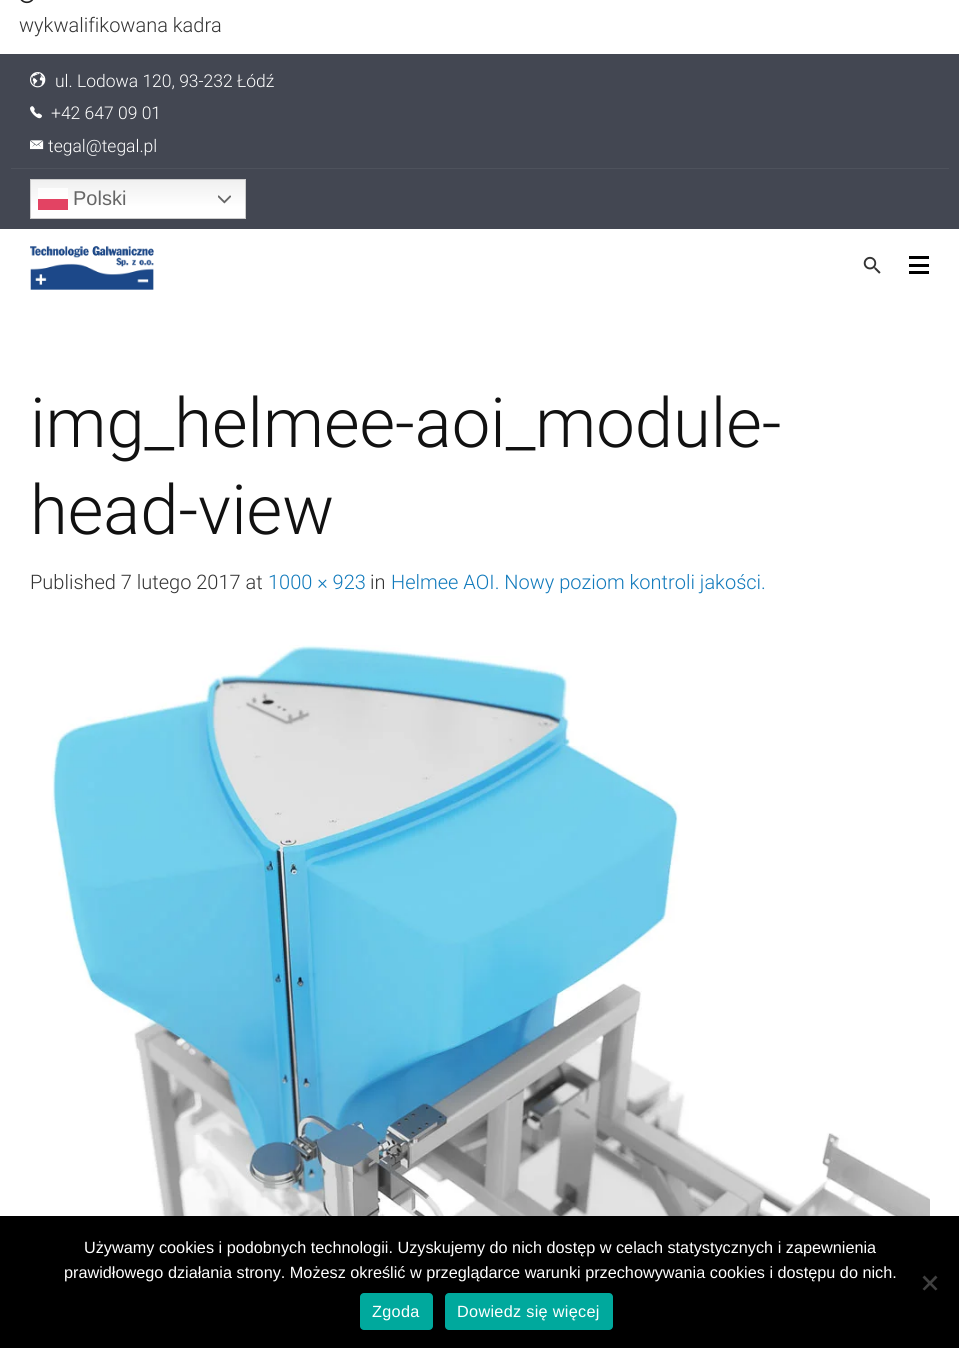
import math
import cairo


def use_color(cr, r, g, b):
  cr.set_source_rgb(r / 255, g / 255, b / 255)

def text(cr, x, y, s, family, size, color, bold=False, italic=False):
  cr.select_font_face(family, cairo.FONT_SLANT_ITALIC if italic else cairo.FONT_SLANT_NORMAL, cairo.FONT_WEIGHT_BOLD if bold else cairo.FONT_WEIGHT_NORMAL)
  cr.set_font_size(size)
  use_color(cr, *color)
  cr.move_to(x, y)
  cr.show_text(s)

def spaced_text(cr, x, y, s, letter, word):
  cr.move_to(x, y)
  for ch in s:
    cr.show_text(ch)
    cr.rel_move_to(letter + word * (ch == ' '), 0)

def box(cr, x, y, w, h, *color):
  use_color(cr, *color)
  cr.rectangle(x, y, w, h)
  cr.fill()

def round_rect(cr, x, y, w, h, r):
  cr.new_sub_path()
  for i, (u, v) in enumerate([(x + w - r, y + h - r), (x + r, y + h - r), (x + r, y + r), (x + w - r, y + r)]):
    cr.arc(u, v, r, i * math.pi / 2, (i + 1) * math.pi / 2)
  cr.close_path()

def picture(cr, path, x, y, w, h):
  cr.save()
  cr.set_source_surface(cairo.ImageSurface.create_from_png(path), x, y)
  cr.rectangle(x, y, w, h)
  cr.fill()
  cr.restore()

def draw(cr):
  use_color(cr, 255, 255, 255)
  cr.paint()
  picture(cr, "img_01.png", 20, 0, 14, 4)
  box(cr, 0, 54, 959, 175, 67, 71, 82)
  picture(cr, "img_02.png", 30, 72, 16, 16)
  picture(cr, "img_03.png", 30, 106, 12, 13)
  picture(cr, "img_04.png", 30, 140, 14, 10)
  box(cr, 11, 168, 938, 1, 78, 82, 92)
  gradient = cairo.LinearGradient(138, 179, 138, 219)
  gradient.add_color_stop_rgba(0, 0.937, 0.937, 0.937, 1)
  gradient.add_color_stop_rgba(0.7, 1, 1, 1, 1)
  cr.set_source(gradient)
  cr.rectangle(31, 180, 214, 38)
  cr.fill()
  gradient = cairo.LinearGradient(138, 179, 138, 219)
  gradient.add_color_stop_rgba(0, 0.988, 0.988, 0.988, 1)
  gradient.add_color_stop_rgba(0.7, 1, 1, 1, 1)
  cr.set_source(gradient)
  cr.rectangle(38, 188, 30, 11)
  cr.fill()
  cr.rectangle(30.5, 179.5, 215, 39)
  use_color(cr, 204, 204, 204)
  cr.set_line_width(1)
  cr.stroke()
  box(cr, 38, 199, 30, 11, 227, 67, 99)
  picture(cr, "img_05.png", 218, 195, 13, 9)
  picture(cr, "img_06.png", 30, 246, 124, 44)
  picture(cr, "img_07.png", 863, 256, 18, 18)
  box(cr, 909, 256, 20, 3, 0, 0, 0)
  box(cr, 909, 264, 20, 3, 0, 0, 0)
  box(cr, 909, 271, 20, 3, 0, 0, 0)
  picture(cr, "img_08.png", 51, 645, 879, 571)
  box(cr, 0, 1216, 959, 132, 0, 0, 0)
  use_color(cr, 64, 64, 64)
  cr.new_path()
  cr.move_to(935.5, 1275.5)
  cr.line_to(937.5, 1277.5)
  cr.line_to(924.5, 1290.5)
  cr.line_to(922.5, 1289)
  cr.close_path()
  cr.fill()
  cr.new_path()
  cr.move_to(922.5, 1277.5)
  cr.line_to(924.5, 1275.5)
  cr.line_to(937.5, 1289)
  cr.line_to(935.5, 1290.5)
  cr.close_path()
  cr.fill()
  use_color(cr, 0, 169, 157)
  round_rect(cr, 360, 1293, 73, 37, 4)
  cr.fill()
  round_rect(cr, 445, 1293, 168, 37, 4)
  cr.fill()
  text(cr, 19, 32, "wykwalifikowana kadra", "Roboto Light", 20, (51, 51, 51))
  text(cr, 55, 87, "ul. Lodowa 120, 93-232 Łódź", "Roboto Light", 17.5, (255, 255, 255))
  text(cr, 51, 119, "+42 647 09 01", "Roboto Light", 17.5, (255, 255, 255))
  text(cr, 48, 152, "tegal@tegal.pl", "Roboto Light", 17.5, (255, 255, 255))
  text(cr, 73, 205, "Polski", "Liberation Sans", 20, (102, 102, 102))
  text(cr, 30, 447, "img_helmee-aoi_module-", "Roboto Light", 68.75, (17, 17, 17))
  text(cr, 30, 534, "head-view", "Roboto Light", 68.75, (17, 17, 17))
  text(cr, 30, 589, "Published 7 lutego 2017 at", "Roboto Light", 20, (51, 51, 51))
  text(cr, 268, 589, "1000 × 923", "Roboto Light", 20, (17, 122, 188))
  text(cr, 370, 589, "in", "Roboto Light", 20, (51, 51, 51))
  text(cr, 391, 589, "Helmee AOI. Nowy poziom kontroli jakości.", "Roboto Light", 20, (17, 122, 188))
  text(cr, 84, 1253, "Używamy cookies i podobnych technologii. Uzyskujemy do nich dostęp w celach statystycznych i zapewnienia", "Liberation Sans", 16.25, (255, 255, 255))
  text(cr, 64, 1278, "prawidłowego działania strony. Możesz określić w przeglądarce warunki przechowywania cookies i dostępu do nich.", "Liberation Sans", 16.25, (255, 255, 255))
  spaced_text(cr, 372, 1317, "Zgoda", 0.3, 0)
  spaced_text(cr, 457, 1317, "Dowiedz się więcej", 0.3, 0)


surface = cairo.ImageSurface(cairo.FORMAT_RGB24, 959, 1348)
cr = cairo.Context(surface)
options = cairo.FontOptions()
options.set_hint_metrics(cairo.HINT_METRICS_OFF)
options.set_hint_style(cairo.HINT_STYLE_NONE)
cr.set_font_options(options)
cr.set_miter_limit(4)
draw(cr)
surface.write_to_png("out.png")
